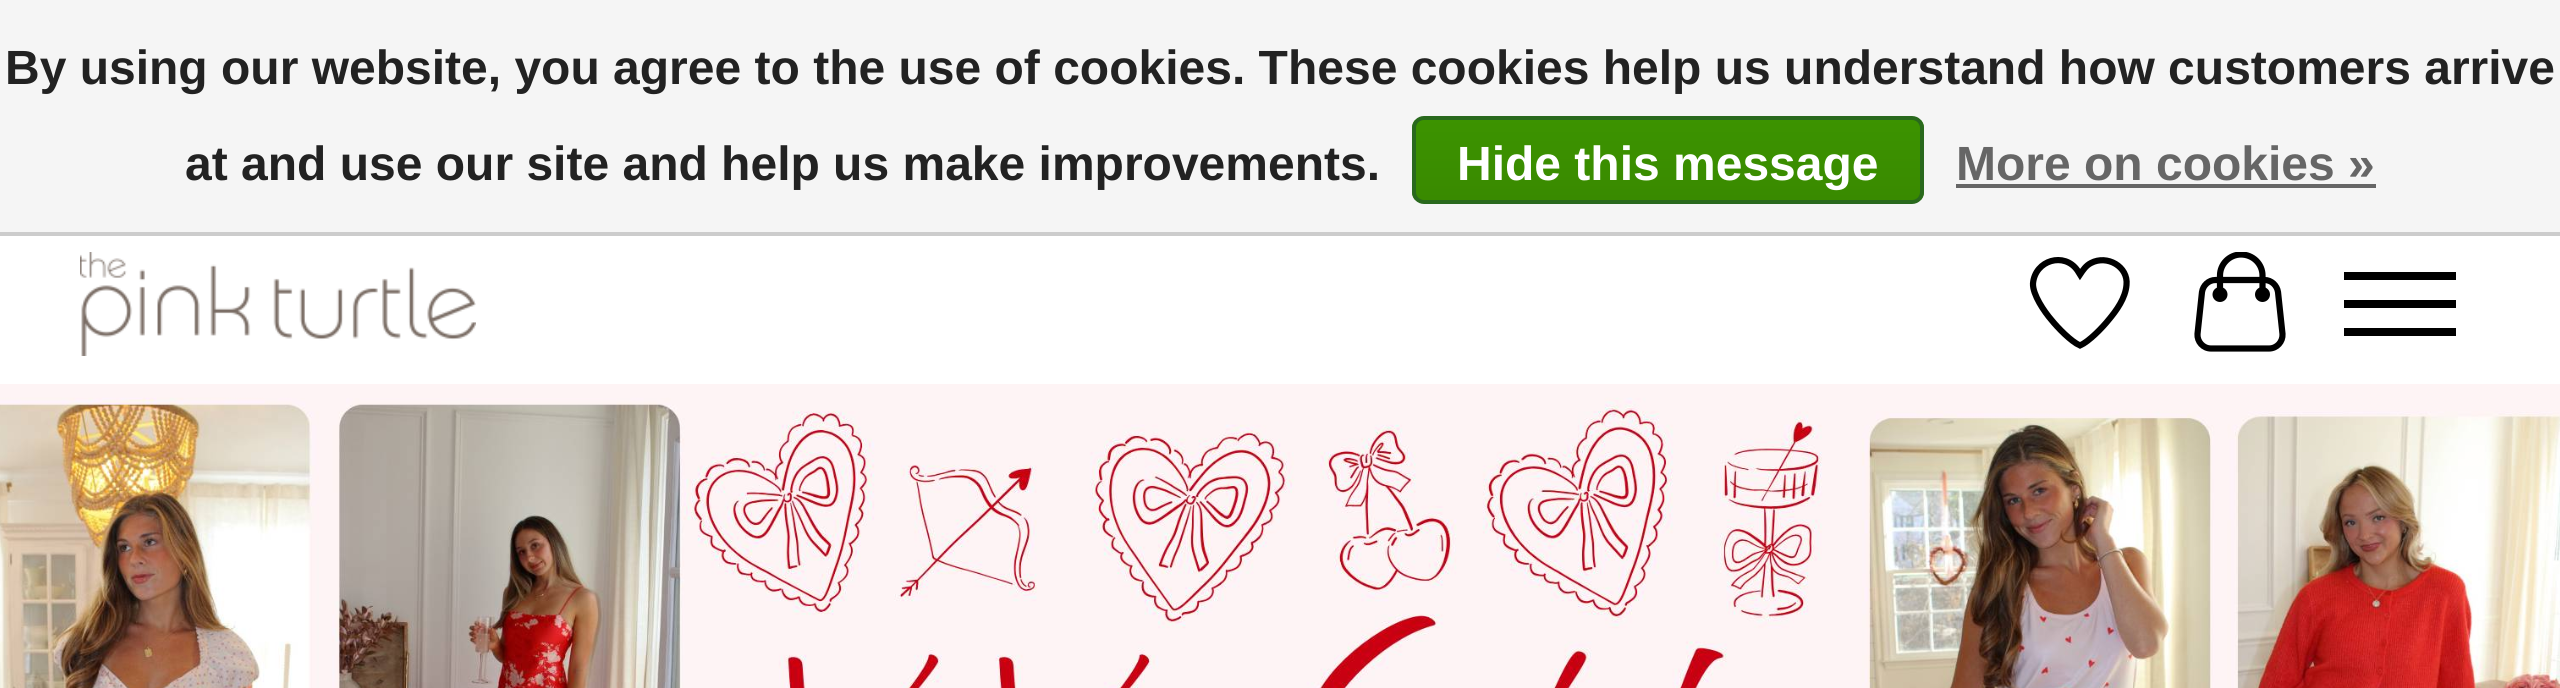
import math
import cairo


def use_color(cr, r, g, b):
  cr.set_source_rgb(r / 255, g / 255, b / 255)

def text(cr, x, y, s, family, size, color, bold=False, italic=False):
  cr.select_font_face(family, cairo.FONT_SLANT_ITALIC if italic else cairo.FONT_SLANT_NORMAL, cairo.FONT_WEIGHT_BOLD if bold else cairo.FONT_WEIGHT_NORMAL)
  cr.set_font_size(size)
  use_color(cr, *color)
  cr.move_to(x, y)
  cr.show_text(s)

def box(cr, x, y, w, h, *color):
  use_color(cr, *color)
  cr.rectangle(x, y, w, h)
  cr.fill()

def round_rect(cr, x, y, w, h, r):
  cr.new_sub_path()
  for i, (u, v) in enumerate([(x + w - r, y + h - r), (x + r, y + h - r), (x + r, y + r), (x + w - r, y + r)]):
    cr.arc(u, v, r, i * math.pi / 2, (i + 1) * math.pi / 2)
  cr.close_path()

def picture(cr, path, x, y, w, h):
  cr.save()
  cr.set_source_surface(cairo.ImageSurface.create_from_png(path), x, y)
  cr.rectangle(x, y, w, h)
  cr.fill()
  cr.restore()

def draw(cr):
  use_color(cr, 255, 255, 255)
  cr.paint()
  box(cr, 0, 0, 2560, 232, 245, 245, 245)
  box(cr, 0, 232, 2560, 4, 204, 204, 204)
  cr.save()
  round_rect(cr, 1412, 116, 512, 88, 12)
  cr.clip()
  gradient = cairo.LinearGradient(1668, 120, 1668, 200)
  gradient.add_color_stop_rgba(0, 0.235, 0.576, 0, 1)
  gradient.add_color_stop_rgba(1, 0.224, 0.541, 0, 1)
  cr.set_source(gradient)
  cr.rectangle(1412, 120, 512, 80)
  cr.fill()
  cr.restore()
  round_rect(cr, 1414, 118, 508, 84, 10)
  use_color(cr, 41, 105, 29)
  cr.set_line_width(4)
  cr.stroke()
  box(cr, 1956, 184, 420, 4, 102, 102, 102)
  picture(cr, "img_01.png", 80, 252, 396, 104)
  cr.new_path()
  cr.move_to(2077.5, 270.5)
  cr.line_to(2080, 274.5)
  cr.curve_to(2083, 270, 2086, 265.5, 2091, 263)
  cr.curve_to(2107, 254.5, 2128.5, 266.5, 2126.5, 285)
  cr.curve_to(2125.5, 298, 2116.5, 310.5, 2108.5, 320)
  cr.curve_to(2102.5, 327.5, 2089, 341.5, 2080, 345.5)
  cr.curve_to(2071, 341.5, 2057.5, 327.5, 2051.5, 320)
  cr.curve_to(2044.5, 312, 2032.5, 294.5, 2033, 283.5)
  cr.curve_to(2035, 260, 2064.5, 251.5, 2077.5, 270.5)
  cr.close_path()
  use_color(cr, 0, 0, 0)
  cr.set_line_width(6.2)
  cr.stroke()
  cr.new_path()
  cr.move_to(2202, 292)
  cr.curve_to(2203, 285.5, 2208.5, 280, 2215.5, 280)
  cr.line_to(2264.5, 280)
  cr.curve_to(2271.5, 280, 2277, 285.5, 2278, 292)
  cr.line_to(2282.5, 334)
  cr.curve_to(2283, 341.5, 2277, 348.5, 2269, 348.5)
  cr.line_to(2211, 348.5)
  cr.curve_to(2203, 348.5, 2197, 341.5, 2197.5, 334)
  cr.close_path()
  cr.stroke()
  cr.save()
  cr.rectangle(2188, 252, 104, 104)
  cr.clip()
  cr.new_path()
  cr.move_to(2220, 292)
  cr.line_to(2220, 275.5)
  cr.curve_to(2220, 264, 2229.5, 254.5, 2241, 254.5)
  cr.curve_to(2253, 254.5, 2262.5, 264, 2262.5, 275.5)
  cr.line_to(2262.5, 292)
  cr.stroke()
  cr.restore()
  cr.arc(2220, 294.5, 7.5, 0, 2 * math.pi)
  cr.fill()
  cr.arc(2262.5, 294.5, 7.5, 0, 2 * math.pi)
  cr.fill()
  box(cr, 2344, 300, 112, 8, 0, 0, 0)
  box(cr, 2344, 272, 112, 8, 0, 0, 0)
  box(cr, 2344, 328, 112, 8, 0, 0, 0)
  picture(cr, "img_02.png", 0, 384, 2560, 304)
  text(cr, 5, 84, "By using our website, you agree to the use of cookies. These cookies help us understand how customers arrive", "Liberation Sans", 48, (34, 34, 34), bold=True)
  text(cr, 185, 180, "at and use our site and help us make improvements.", "Liberation Sans", 48, (34, 34, 34), bold=True)
  text(cr, 1457, 180, "Hide this message", "Liberation Sans", 48, (255, 255, 255), bold=True)
  text(cr, 1956, 180, "More on cookies »", "Liberation Sans", 48, (102, 102, 102), bold=True)


surface = cairo.ImageSurface(cairo.FORMAT_RGB24, 2560, 688)
cr = cairo.Context(surface)
options = cairo.FontOptions()
options.set_hint_metrics(cairo.HINT_METRICS_OFF)
options.set_hint_style(cairo.HINT_STYLE_NONE)
cr.set_font_options(options)
cr.set_miter_limit(4)
draw(cr)
surface.write_to_png("out.png")
